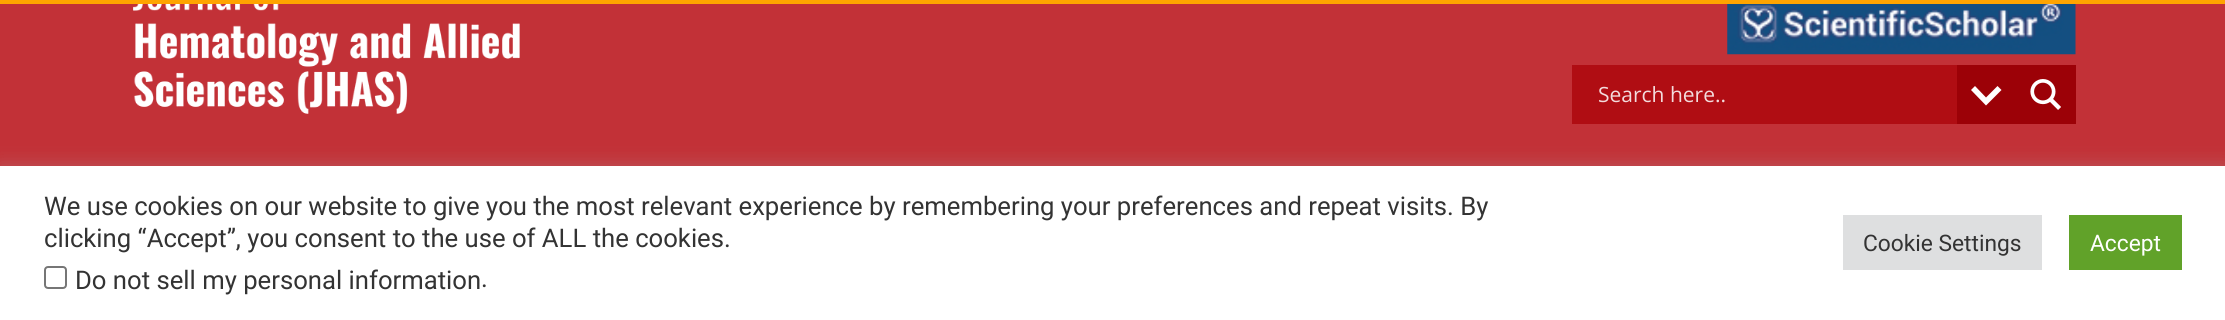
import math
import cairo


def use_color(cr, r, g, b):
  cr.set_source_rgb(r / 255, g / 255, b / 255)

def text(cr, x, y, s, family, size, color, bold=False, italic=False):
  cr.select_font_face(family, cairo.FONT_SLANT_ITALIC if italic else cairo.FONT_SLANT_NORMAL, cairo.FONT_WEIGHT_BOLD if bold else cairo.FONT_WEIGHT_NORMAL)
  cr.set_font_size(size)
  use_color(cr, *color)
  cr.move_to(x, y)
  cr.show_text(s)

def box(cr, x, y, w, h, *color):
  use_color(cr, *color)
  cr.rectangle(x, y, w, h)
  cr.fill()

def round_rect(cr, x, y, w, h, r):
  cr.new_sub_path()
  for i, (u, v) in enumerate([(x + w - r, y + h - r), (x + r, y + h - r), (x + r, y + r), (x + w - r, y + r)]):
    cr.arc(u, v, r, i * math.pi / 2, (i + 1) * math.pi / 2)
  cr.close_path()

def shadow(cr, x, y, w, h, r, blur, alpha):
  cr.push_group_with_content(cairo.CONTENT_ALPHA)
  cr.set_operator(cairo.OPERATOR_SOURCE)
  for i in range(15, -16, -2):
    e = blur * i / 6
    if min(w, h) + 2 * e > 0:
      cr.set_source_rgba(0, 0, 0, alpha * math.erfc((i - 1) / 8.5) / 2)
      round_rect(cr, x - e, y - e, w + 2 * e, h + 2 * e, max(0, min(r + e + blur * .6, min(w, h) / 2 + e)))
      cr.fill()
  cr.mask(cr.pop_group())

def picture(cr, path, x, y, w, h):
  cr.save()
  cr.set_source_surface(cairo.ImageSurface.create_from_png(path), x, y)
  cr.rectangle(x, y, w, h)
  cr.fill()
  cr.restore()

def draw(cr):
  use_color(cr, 194, 49, 55)
  cr.paint()
  box(cr, 0, 0, 2225, 4, 255, 164, 0)
  picture(cr, "img_01.png", 133, 4, 387, 110)
  picture(cr, "img_02.png", 1727, 4, 349, 51)
  box(cr, 1572, 65, 385, 59, 176, 13, 19)
  box(cr, 1957, 65, 119, 59, 156, 1, 7)
  use_color(cr, 255, 255, 255)
  cr.new_path()
  cr.move_to(1997.5, 86)
  cr.line_to(2001.5, 90)
  cr.line_to(1986, 105.5)
  cr.line_to(1971, 90)
  cr.line_to(1975, 86)
  cr.line_to(1986, 97.5)
  cr.close_path()
  cr.fill()
  picture(cr, "img_03.png", 2030, 79, 31, 31)
  use_color(cr, 172, 171, 171)
  shadow(cr, 0, 165, 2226, 154, 0, 9, 0.3)
  box(cr, 0, 166, 2225, 154, 255, 255, 255)
  round_rect(cr, 45, 267, 21, 21, 3)
  use_color(cr, 118, 118, 118)
  cr.stroke()
  box(cr, 1843, 215, 199, 55, 222, 223, 224)
  box(cr, 2069, 215, 113, 55, 97, 162, 41)
  text(cr, 1598, 102, "Search here..", "Open Sans", 21, (243, 219, 220))
  text(cr, 44, 215, "We use cookies on our website to give you the most relevant experience by remembering your preferences and repeat visits. By", "Roboto", 25.67, (51, 51, 51))
  text(cr, 44, 247, "clicking “Accept”, you consent to the use of ALL the cookies.", "Roboto", 25.67, (51, 51, 51))
  text(cr, 75, 289, "Do not sell my personal information", "Roboto", 25.67, (51, 51, 51))
  text(cr, 481, 287, ".", "Roboto", 25.67, (51, 51, 51))
  text(cr, 1863, 251, "Cookie Settings", "Roboto", 22.75, (51, 51, 51))
  text(cr, 2090, 251, "Accept", "Roboto", 22.75, (255, 255, 255))


surface = cairo.ImageSurface(cairo.FORMAT_RGB24, 2225, 320)
cr = cairo.Context(surface)
options = cairo.FontOptions()
options.set_hint_metrics(cairo.HINT_METRICS_OFF)
options.set_hint_style(cairo.HINT_STYLE_NONE)
cr.set_font_options(options)
cr.set_miter_limit(4)
draw(cr)
surface.write_to_png("out.png")
